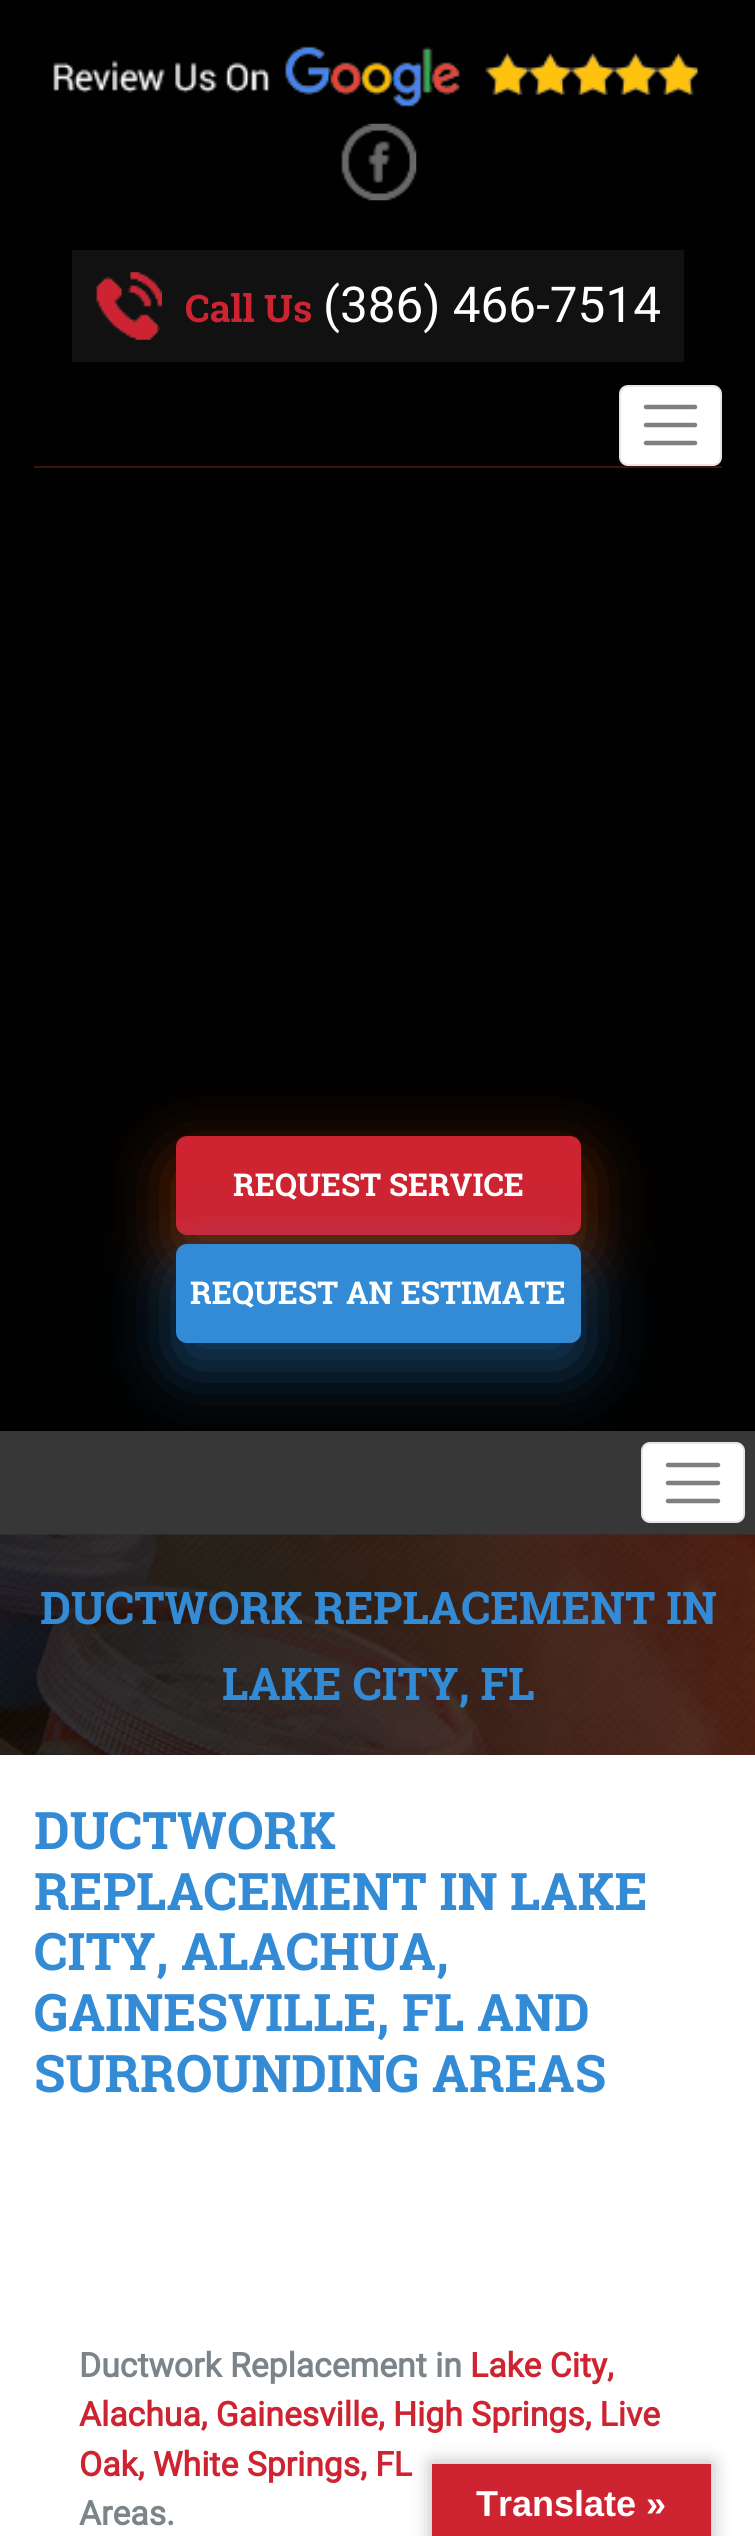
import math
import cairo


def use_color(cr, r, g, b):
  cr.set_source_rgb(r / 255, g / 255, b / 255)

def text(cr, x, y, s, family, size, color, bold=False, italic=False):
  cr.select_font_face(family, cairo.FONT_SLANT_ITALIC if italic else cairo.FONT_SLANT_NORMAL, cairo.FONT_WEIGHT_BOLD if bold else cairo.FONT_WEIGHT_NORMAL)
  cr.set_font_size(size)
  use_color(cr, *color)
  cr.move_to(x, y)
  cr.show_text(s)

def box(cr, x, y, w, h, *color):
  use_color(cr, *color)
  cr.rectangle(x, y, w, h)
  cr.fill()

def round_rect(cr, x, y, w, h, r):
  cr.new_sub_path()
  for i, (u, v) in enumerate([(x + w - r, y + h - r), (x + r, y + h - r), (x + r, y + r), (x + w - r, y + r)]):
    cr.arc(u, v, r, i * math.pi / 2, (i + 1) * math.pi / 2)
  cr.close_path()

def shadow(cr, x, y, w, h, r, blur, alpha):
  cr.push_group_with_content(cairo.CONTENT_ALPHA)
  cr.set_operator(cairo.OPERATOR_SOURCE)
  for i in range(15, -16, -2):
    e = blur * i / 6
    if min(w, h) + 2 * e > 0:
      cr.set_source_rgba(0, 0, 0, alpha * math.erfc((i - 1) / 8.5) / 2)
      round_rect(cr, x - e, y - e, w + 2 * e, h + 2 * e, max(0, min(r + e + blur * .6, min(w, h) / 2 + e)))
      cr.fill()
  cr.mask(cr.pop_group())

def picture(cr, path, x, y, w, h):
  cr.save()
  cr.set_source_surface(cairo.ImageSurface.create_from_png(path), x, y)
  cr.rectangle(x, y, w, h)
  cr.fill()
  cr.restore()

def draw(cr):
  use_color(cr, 255, 255, 255)
  cr.paint()
  box(cr, 0, 0, 755, 1431, 1, 1, 1)
  box(cr, 34, 466, 688, 2, 60, 22, 1)
  picture(cr, "img_01.png", 53, 46, 645, 61)
  picture(cr, "img_02.png", 341, 123, 76, 78)
  box(cr, 72, 250, 612, 112, 17, 17, 17)
  picture(cr, "img_03.png", 96, 272, 66, 68)
  use_color(cr, 255, 255, 255)
  round_rect(cr, 619, 385, 103, 81, 9)
  cr.fill()
  round_rect(cr, 620, 386, 101, 79, 8)
  cr.set_source_rgba(0, 0, 0, 0.1)
  cr.stroke()
  cr.new_path()
  cr.move_to(646, 407)
  cr.line_to(695, 407)
  cr.move_to(646, 425)
  cr.line_to(695, 425)
  cr.move_to(646, 443)
  cr.line_to(695, 443)
  use_color(cr, 128, 128, 128)
  cr.set_line_width(4.5)
  cr.set_line_cap(cairo.LINE_CAP_ROUND)
  cr.stroke()
  use_color(cr, 255, 92, 2)
  shadow(cr, 176, 1159, 405, 99, 11, 34, 0.45)
  use_color(cr, 206, 35, 49)
  round_rect(cr, 176, 1136, 405, 99, 11)
  cr.fill()
  use_color(cr, 48, 148, 233)
  shadow(cr, 176, 1267, 405, 99, 11, 34, 0.45)
  use_color(cr, 51, 139, 214)
  round_rect(cr, 176, 1244, 405, 99, 11)
  cr.fill()
  box(cr, 0, 1431, 755, 104, 55, 55, 55)
  use_color(cr, 255, 255, 255)
  round_rect(cr, 641, 1442, 104, 81, 9)
  cr.fill()
  round_rect(cr, 642, 1443, 102, 79, 8)
  cr.set_source_rgba(0, 0, 0, 0.1)
  cr.set_line_width(2)
  cr.set_line_cap(cairo.LINE_CAP_BUTT)
  cr.stroke()
  cr.new_path()
  cr.move_to(668, 1465)
  cr.line_to(718, 1465)
  cr.move_to(668, 1483)
  cr.line_to(718, 1483)
  cr.move_to(668, 1501)
  cr.line_to(718, 1501)
  use_color(cr, 128, 128, 128)
  cr.set_line_width(4.5)
  cr.set_line_cap(cairo.LINE_CAP_ROUND)
  cr.stroke()
  picture(cr, "img_04.png", 0, 1534, 755, 221)
  use_color(cr, 0, 0, 0)
  shadow(cr, 432, 2464, 279, 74, 0, 10, 0.3)
  box(cr, 432, 2464, 279, 72, 206, 35, 49)
  text(cr, 185, 322, "Call Us", "Roboto Slab", 38, (206, 35, 49), bold=True)
  text(cr, 323, 322, "(386) 466-7514", "Roboto", 49.5, (255, 255, 255))
  text(cr, 233, 1196, "REQUEST SERVICE", "Roboto Slab", 31.5, (255, 255, 255), bold=True)
  text(cr, 190, 1304, "REQUEST AN ESTIMATE", "Roboto Slab", 31.5, (255, 255, 255), bold=True)
  text(cr, 40, 1624, "DUCTWORK REPLACEMENT IN", "Roboto Slab", 45, (51, 139, 214), bold=True)
  text(cr, 222, 1700, "LAKE CITY, FL", "Roboto Slab", 45, (51, 139, 214), bold=True)
  text(cr, 34, 1849, "DUCTWORK", "Roboto Slab", 51.75, (51, 139, 214), bold=True)
  text(cr, 34, 1910, "REPLACEMENT IN LAKE", "Roboto Slab", 51.75, (51, 139, 214), bold=True)
  text(cr, 34, 1970, "CITY, ALACHUA,", "Roboto Slab", 51.75, (51, 139, 214), bold=True)
  text(cr, 34, 2031, "GAINESVILLE, FL AND", "Roboto Slab", 51.75, (51, 139, 214), bold=True)
  text(cr, 34, 2092, "SURROUNDING AREAS", "Roboto Slab", 51.75, (51, 139, 214), bold=True)
  text(cr, 79, 2377, "Ductwork Replacement in", "Roboto", 33.75, (123, 132, 137), bold=True)
  text(cr, 470, 2377, "Lake City,", "Roboto", 33.75, (206, 35, 49), bold=True)
  text(cr, 79, 2426, "Alachua, Gainesville, High Springs, Live", "Roboto", 33.75, (206, 35, 49), bold=True)
  text(cr, 79, 2476, "Oak, White Springs, FL", "Roboto", 33.75, (206, 35, 49), bold=True)
  text(cr, 79, 2525, "Areas.", "Roboto", 33.75, (123, 132, 137), bold=True)
  text(cr, 476, 2516, "Translate »", "Liberation Sans", 36, (255, 255, 255), bold=True)


surface = cairo.ImageSurface(cairo.FORMAT_RGB24, 755, 2536)
cr = cairo.Context(surface)
options = cairo.FontOptions()
options.set_hint_metrics(cairo.HINT_METRICS_OFF)
options.set_hint_style(cairo.HINT_STYLE_NONE)
cr.set_font_options(options)
cr.set_miter_limit(4)
draw(cr)
surface.write_to_png("out.png")
